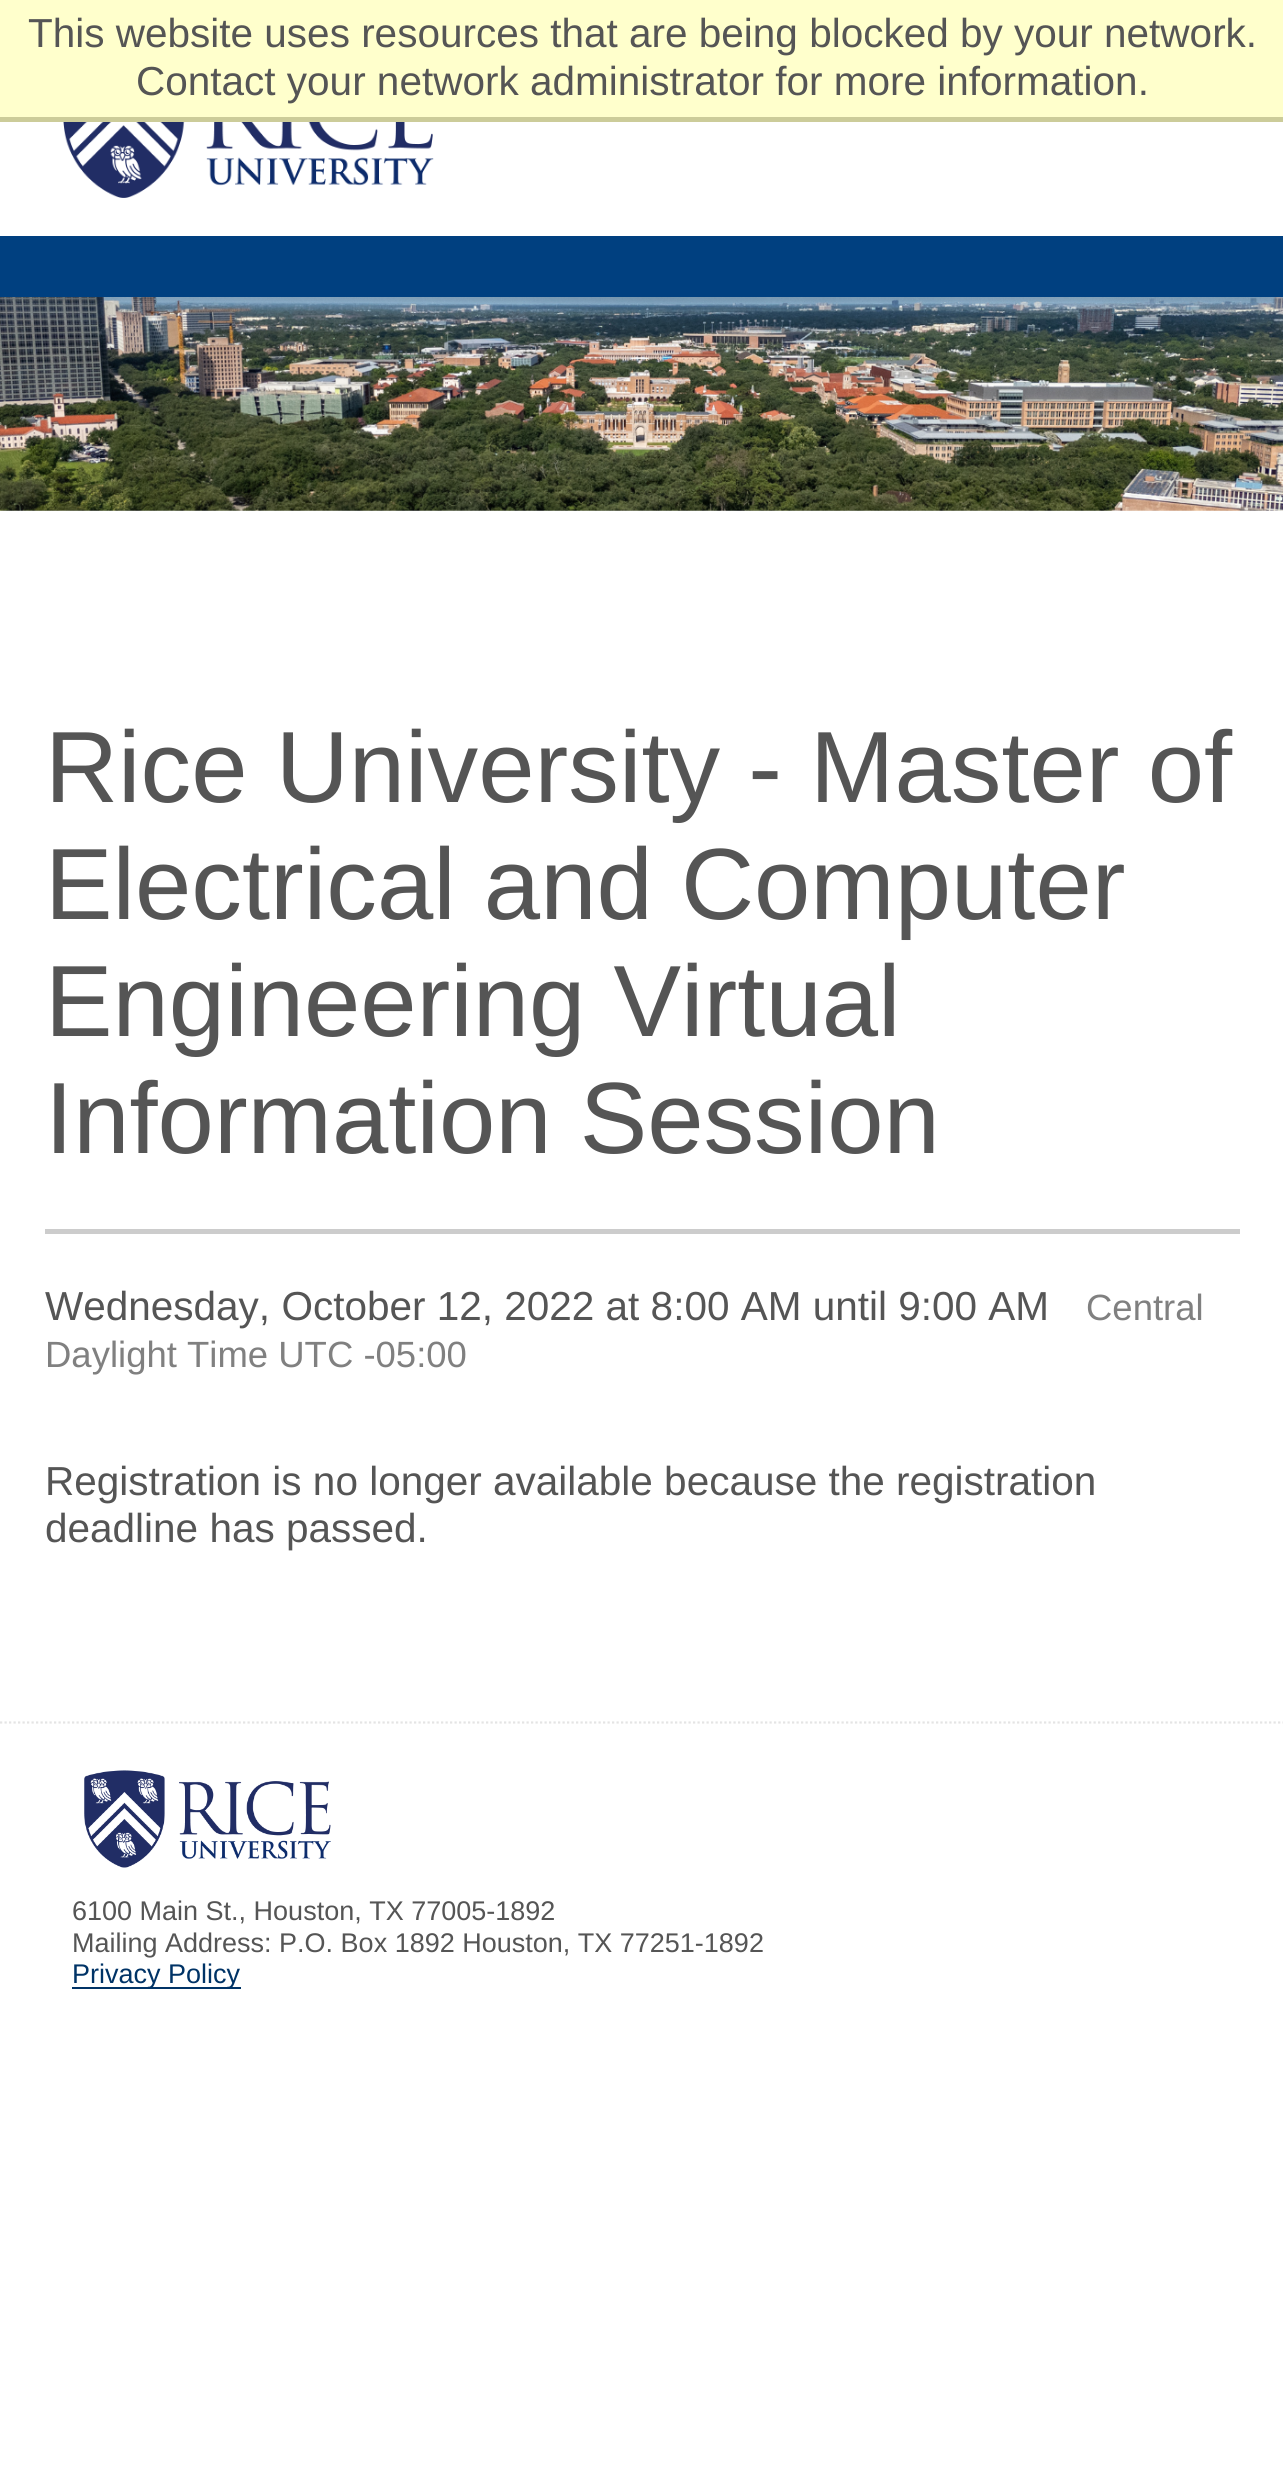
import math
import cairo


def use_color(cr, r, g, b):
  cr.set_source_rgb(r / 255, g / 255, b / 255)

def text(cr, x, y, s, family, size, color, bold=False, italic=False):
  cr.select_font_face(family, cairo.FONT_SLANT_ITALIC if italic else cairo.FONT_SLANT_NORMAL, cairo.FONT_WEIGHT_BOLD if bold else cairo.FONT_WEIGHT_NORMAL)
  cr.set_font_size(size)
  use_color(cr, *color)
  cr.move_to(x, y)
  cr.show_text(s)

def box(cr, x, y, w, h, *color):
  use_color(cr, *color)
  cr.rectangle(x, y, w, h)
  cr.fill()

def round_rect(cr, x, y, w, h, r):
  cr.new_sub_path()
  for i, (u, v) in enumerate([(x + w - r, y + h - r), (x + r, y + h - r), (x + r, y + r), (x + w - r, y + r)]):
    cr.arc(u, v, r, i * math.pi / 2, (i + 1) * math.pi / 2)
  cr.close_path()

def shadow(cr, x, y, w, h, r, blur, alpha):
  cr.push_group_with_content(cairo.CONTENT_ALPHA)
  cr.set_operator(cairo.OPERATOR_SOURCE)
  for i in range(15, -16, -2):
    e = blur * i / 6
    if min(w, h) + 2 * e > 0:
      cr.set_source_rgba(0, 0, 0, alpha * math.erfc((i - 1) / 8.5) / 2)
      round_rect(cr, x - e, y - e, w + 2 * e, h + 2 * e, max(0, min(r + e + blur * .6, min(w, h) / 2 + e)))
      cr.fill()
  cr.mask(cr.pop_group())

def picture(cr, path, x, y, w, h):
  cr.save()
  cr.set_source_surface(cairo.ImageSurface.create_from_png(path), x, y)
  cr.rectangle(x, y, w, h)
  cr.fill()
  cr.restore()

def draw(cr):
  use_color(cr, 255, 255, 255)
  cr.paint()
  box(cr, 0, 0, 1283, 117, 255, 255, 204)
  box(cr, 0, 117, 1283, 5, 204, 204, 153)
  picture(cr, "img_01.png", 63, 122, 371, 76)
  picture(cr, "img_02.png", 0, 297, 1283, 214)
  use_color(cr, 0, 0, 0)
  shadow(cr, 0, 241, 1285, 61, 0, 2, 0.1)
  box(cr, 0, 236, 1283, 61, 0, 64, 128)
  cr.new_path()
  cr.move_to(0, 1722.5)
  cr.line_to(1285, 1722.5)
  use_color(cr, 228, 228, 228)
  cr.set_line_width(2.2)
  cr.set_dash([2.25, 2.25])
  cr.stroke()
  box(cr, 45, 1229, 1195, 5, 204, 204, 204)
  picture(cr, "img_03.png", 84, 1770, 247, 98)
  box(cr, 72, 1987, 169, 2, 0, 51, 102)
  text(cr, 28, 47, "This website uses resources that are being blocked by your network.", "Liberation Sans", 40.5, (85, 85, 85))
  text(cr, 136, 95, "Contact your network administrator for more information.", "Liberation Sans", 40.5, (85, 85, 85))
  text(cr, 45, 802, "Rice University - Master of", "Liberation Sans", 101.25, (85, 85, 85))
  text(cr, 45, 919, "Electrical and Computer", "Liberation Sans", 101.25, (85, 85, 85))
  text(cr, 45, 1036, "Engineering Virtual", "Liberation Sans", 101.25, (85, 85, 85))
  text(cr, 45, 1153, "Information Session", "Liberation Sans", 101.25, (85, 85, 85))
  text(cr, 45, 1320, "Wednesday, October 12, 2022 at 8:00 AM until 9:00 AM", "Liberation Sans", 40.5, (85, 85, 85))
  text(cr, 1086, 1320, "Central", "Liberation Sans", 36.5, (128, 128, 128))
  text(cr, 45, 1367, "Daylight Time UTC -05:00", "Liberation Sans", 36.5, (128, 128, 128))
  text(cr, 45, 1495, "Registration is no longer available because the registration", "Liberation Sans", 40.5, (85, 85, 85))
  text(cr, 45, 1542, "deadline has passed.", "Liberation Sans", 40.5, (85, 85, 85))
  text(cr, 72, 1920, "6100 Main St., Houston, TX 77005-1892", "Liberation Sans", 27, (85, 85, 85))
  text(cr, 72, 1952, "Mailing Address: P.O. Box 1892 Houston, TX 77251-1892", "Liberation Sans", 27, (85, 85, 85))
  text(cr, 72, 1983, "Privacy Policy", "Liberation Sans", 27, (0, 51, 102))


surface = cairo.ImageSurface(cairo.FORMAT_RGB24, 1283, 2478)
cr = cairo.Context(surface)
options = cairo.FontOptions()
options.set_hint_metrics(cairo.HINT_METRICS_OFF)
options.set_hint_style(cairo.HINT_STYLE_NONE)
cr.set_font_options(options)
cr.set_miter_limit(4)
draw(cr)
surface.write_to_png("out.png")
